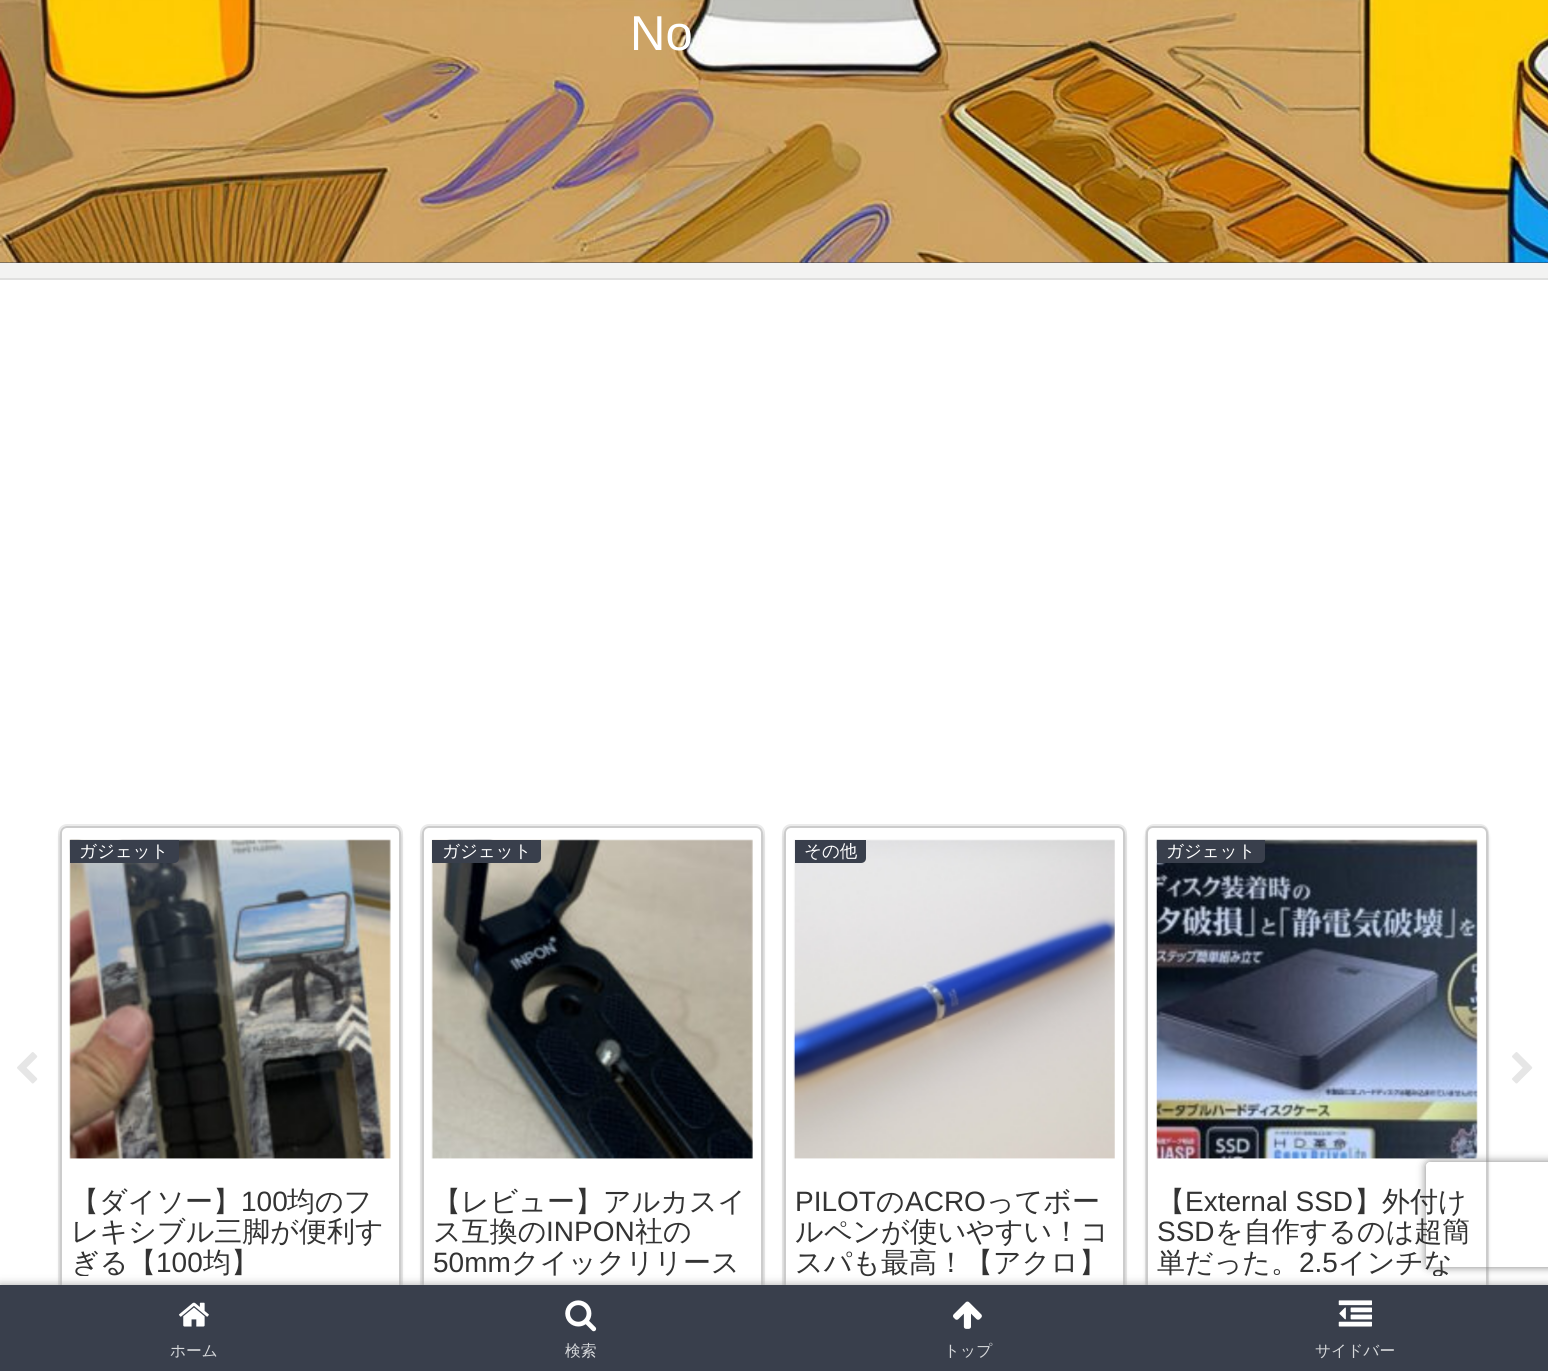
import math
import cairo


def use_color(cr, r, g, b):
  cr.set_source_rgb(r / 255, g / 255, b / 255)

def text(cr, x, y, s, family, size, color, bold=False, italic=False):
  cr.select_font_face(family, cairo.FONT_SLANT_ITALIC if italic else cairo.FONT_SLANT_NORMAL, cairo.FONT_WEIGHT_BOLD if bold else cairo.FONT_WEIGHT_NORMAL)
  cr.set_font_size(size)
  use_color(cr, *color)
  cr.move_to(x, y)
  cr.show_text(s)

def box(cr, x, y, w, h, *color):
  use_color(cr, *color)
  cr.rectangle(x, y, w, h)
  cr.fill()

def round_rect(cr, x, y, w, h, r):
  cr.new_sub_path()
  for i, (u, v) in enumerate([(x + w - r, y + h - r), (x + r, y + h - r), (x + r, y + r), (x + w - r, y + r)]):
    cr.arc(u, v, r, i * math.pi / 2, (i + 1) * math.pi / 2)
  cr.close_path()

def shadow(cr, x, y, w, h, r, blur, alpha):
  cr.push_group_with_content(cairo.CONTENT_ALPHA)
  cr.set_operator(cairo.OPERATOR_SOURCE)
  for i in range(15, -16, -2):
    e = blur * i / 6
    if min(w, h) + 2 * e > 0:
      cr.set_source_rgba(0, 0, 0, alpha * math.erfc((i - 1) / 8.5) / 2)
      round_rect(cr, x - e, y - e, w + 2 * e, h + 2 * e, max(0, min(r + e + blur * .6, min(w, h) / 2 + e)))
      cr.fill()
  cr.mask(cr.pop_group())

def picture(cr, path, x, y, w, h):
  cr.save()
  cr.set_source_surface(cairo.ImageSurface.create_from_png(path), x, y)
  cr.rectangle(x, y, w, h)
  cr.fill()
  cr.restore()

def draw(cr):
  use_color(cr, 243, 243, 242)
  cr.paint()
  box(cr, 0, 262, 1548, 1, 57, 63, 76)
  picture(cr, "img_01.png", 0, 0, 1548, 263)
  cr.rectangle(-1, 279, 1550, 1055)
  use_color(cr, 224, 224, 223)
  cr.stroke()
  box(cr, 0, 280, 1548, 1005, 255, 255, 255)
  picture(cr, "img_02.png", 17, 1052, 21, 32)
  round_rect(cr, 59, 825, 343, 476, 8)
  use_color(cr, 235, 235, 235)
  cr.stroke()
  cr.save()
  cr.set_fill_rule(cairo.FILL_RULE_EVEN_ODD)
  cr.new_path()
  cr.move_to(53, 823)
  cr.line_to(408, 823)
  cr.line_to(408, 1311)
  cr.line_to(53, 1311)
  cr.close_path()
  cr.move_to(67, 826)
  cr.line_to(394, 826)
  cr.curve_to(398, 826, 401, 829, 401, 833)
  cr.line_to(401, 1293)
  cr.curve_to(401, 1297, 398, 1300, 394, 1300)
  cr.line_to(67, 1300)
  cr.curve_to(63, 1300, 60, 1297, 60, 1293)
  cr.line_to(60, 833)
  cr.curve_to(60, 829, 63, 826, 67, 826)
  cr.close_path()
  cr.clip()
  use_color(cr, 0, 0, 0)
  shadow(cr, 60, 830, 341, 474, 7, 2, 0.16)
  cr.restore()
  round_rect(cr, 61, 827, 339, 472, 6)
  use_color(cr, 204, 204, 204)
  cr.stroke()
  picture(cr, "img_03.png", 69, 839, 322, 320)
  use_color(cr, 57, 63, 76)
  cr.new_path()
  cr.move_to(70, 840)
  cr.line_to(179, 840)
  cr.line_to(179, 858)
  cr.curve_to(179, 861, 177, 863, 174, 863)
  cr.line_to(70, 863)
  cr.close_path()
  cr.fill()
  round_rect(cr, 421, 825, 343, 476, 8)
  use_color(cr, 235, 235, 235)
  cr.stroke()
  cr.save()
  cr.set_fill_rule(cairo.FILL_RULE_EVEN_ODD)
  cr.new_path()
  cr.move_to(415, 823)
  cr.line_to(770, 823)
  cr.line_to(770, 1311)
  cr.line_to(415, 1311)
  cr.close_path()
  cr.move_to(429, 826)
  cr.line_to(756, 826)
  cr.curve_to(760, 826, 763, 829, 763, 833)
  cr.line_to(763, 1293)
  cr.curve_to(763, 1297, 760, 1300, 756, 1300)
  cr.line_to(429, 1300)
  cr.curve_to(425, 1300, 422, 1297, 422, 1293)
  cr.line_to(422, 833)
  cr.curve_to(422, 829, 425, 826, 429, 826)
  cr.close_path()
  cr.clip()
  use_color(cr, 0, 0, 0)
  shadow(cr, 422, 830, 341, 474, 7, 2, 0.16)
  cr.restore()
  round_rect(cr, 423, 827, 339, 472, 6)
  use_color(cr, 204, 204, 204)
  cr.stroke()
  picture(cr, "img_04.png", 431, 839, 322, 320)
  use_color(cr, 57, 63, 76)
  cr.new_path()
  cr.move_to(432, 840)
  cr.line_to(541, 840)
  cr.line_to(541, 858)
  cr.curve_to(541, 861, 539, 863, 536, 863)
  cr.line_to(432, 863)
  cr.close_path()
  cr.fill()
  round_rect(cr, 783, 825, 343, 476, 8)
  use_color(cr, 235, 235, 235)
  cr.stroke()
  cr.save()
  cr.set_fill_rule(cairo.FILL_RULE_EVEN_ODD)
  cr.new_path()
  cr.move_to(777, 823)
  cr.line_to(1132, 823)
  cr.line_to(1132, 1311)
  cr.line_to(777, 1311)
  cr.close_path()
  cr.move_to(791, 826)
  cr.line_to(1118, 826)
  cr.curve_to(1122, 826, 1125, 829, 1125, 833)
  cr.line_to(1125, 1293)
  cr.curve_to(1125, 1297, 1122, 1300, 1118, 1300)
  cr.line_to(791, 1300)
  cr.curve_to(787, 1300, 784, 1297, 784, 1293)
  cr.line_to(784, 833)
  cr.curve_to(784, 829, 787, 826, 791, 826)
  cr.close_path()
  cr.clip()
  use_color(cr, 0, 0, 0)
  shadow(cr, 784, 830, 341, 474, 7, 2, 0.16)
  cr.restore()
  round_rect(cr, 785, 827, 339, 472, 6)
  use_color(cr, 204, 204, 204)
  cr.stroke()
  picture(cr, "img_05.png", 793, 839, 322, 320)
  use_color(cr, 57, 63, 76)
  cr.new_path()
  cr.move_to(795, 840)
  cr.line_to(866, 840)
  cr.line_to(866, 858)
  cr.curve_to(866, 861, 864, 863, 861, 863)
  cr.line_to(795, 863)
  cr.close_path()
  cr.fill()
  round_rect(cr, 1146, 825, 342, 476, 8)
  use_color(cr, 235, 235, 235)
  cr.stroke()
  cr.save()
  cr.set_fill_rule(cairo.FILL_RULE_EVEN_ODD)
  cr.new_path()
  cr.move_to(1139, 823)
  cr.line_to(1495, 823)
  cr.line_to(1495, 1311)
  cr.line_to(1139, 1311)
  cr.close_path()
  cr.move_to(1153, 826)
  cr.line_to(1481, 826)
  cr.curve_to(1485, 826, 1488, 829, 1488, 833)
  cr.line_to(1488, 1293)
  cr.curve_to(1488, 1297, 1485, 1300, 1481, 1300)
  cr.line_to(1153, 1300)
  cr.curve_to(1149, 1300, 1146, 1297, 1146, 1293)
  cr.line_to(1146, 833)
  cr.curve_to(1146, 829, 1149, 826, 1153, 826)
  cr.close_path()
  cr.clip()
  use_color(cr, 0, 0, 0)
  shadow(cr, 1146, 830, 342, 474, 7, 2, 0.16)
  cr.restore()
  round_rect(cr, 1147, 827, 340, 472, 6)
  use_color(cr, 204, 204, 204)
  cr.stroke()
  picture(cr, "img_06.png", 1156, 839, 322, 320)
  use_color(cr, 57, 63, 76)
  cr.new_path()
  cr.move_to(1157, 840)
  cr.line_to(1265, 840)
  cr.line_to(1265, 858)
  cr.curve_to(1265, 861, 1263, 863, 1260, 863)
  cr.line_to(1157, 863)
  cr.close_path()
  cr.fill()
  picture(cr, "img_07.png", 1512, 1052, 21, 32)
  use_color(cr, 169, 169, 169)
  shadow(cr, 0, 1285, 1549, 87, 0, 4.5, 1)
  box(cr, 0, 1285, 1548, 86, 57, 63, 76)
  picture(cr, "img_08.png", 179, 1302, 30, 25)
  picture(cr, "img_09.png", 565, 1300, 32, 32)
  picture(cr, "img_10.png", 953, 1301, 29, 28)
  picture(cr, "img_11.png", 1338, 1300, 34, 27)
  cr.save()
  cr.set_fill_rule(cairo.FILL_RULE_EVEN_ODD)
  cr.new_path()
  cr.move_to(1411, 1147)
  cr.line_to(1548, 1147)
  cr.line_to(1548, 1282)
  cr.line_to(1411, 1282)
  cr.close_path()
  cr.move_to(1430, 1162)
  cr.line_to(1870, 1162)
  cr.curve_to(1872, 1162, 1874, 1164, 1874, 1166)
  cr.line_to(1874, 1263)
  cr.curve_to(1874, 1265, 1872, 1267, 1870, 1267)
  cr.line_to(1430, 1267)
  cr.curve_to(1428, 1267, 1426, 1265, 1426, 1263)
  cr.line_to(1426, 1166)
  cr.curve_to(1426, 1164, 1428, 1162, 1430, 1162)
  cr.close_path()
  cr.clip()
  use_color(cr, 128, 128, 128)
  shadow(cr, 1426, 1162, 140, 105, 4, 4.5, 1)
  cr.restore()
  text(cr, 630, 50, "No", "Liberation Sans", 49, (255, 255, 255))
  text(cr, 79, 857, "ガジェット", "WenQuanYi Zen Hei Medium", 17.5, (255, 255, 255))
  text(cr, 71, 1211, "【ダイソー】", "WenQuanYi Zen Hei Medium", 28, (51, 51, 51))
  text(cr, 241, 1211, "100", "Liberation Sans", 28, (51, 51, 51))
  text(cr, 287, 1211, "均のフ", "WenQuanYi Zen Hei Medium", 28, (51, 51, 51))
  text(cr, 71, 1241, "レキシブル三脚が便利す", "WenQuanYi Zen Hei Medium", 28, (51, 51, 51))
  cr.save()
  cr.rectangle(70, 1187, 320, 89)
  cr.clip()
  text(cr, 71, 1272, "ぎる【", "WenQuanYi Zen Hei Medium", 28, (51, 51, 51))
  cr.restore()
  text(cr, 156, 1272, "100", "Liberation Sans", 28, (51, 51, 51))
  text(cr, 203, 1272, "均】", "WenQuanYi Zen Hei Medium", 28, (51, 51, 51))
  text(cr, 442, 857, "ガジェット", "WenQuanYi Zen Hei Medium", 17.5, (255, 255, 255))
  text(cr, 433, 1211, "【レビュー】アルカスイ", "WenQuanYi Zen Hei Medium", 28, (51, 51, 51))
  text(cr, 433, 1241, "ス互換の", "WenQuanYi Zen Hei Medium", 28, (51, 51, 51))
  text(cr, 546, 1241, "INPON", "Liberation Sans", 28, (51, 51, 51))
  text(cr, 635, 1241, "社の", "WenQuanYi Zen Hei Medium", 28, (51, 51, 51))
  text(cr, 433, 1272, "50mm", "Liberation Sans", 28, (51, 51, 51))
  text(cr, 511, 1272, "クイックリリース", "WenQuanYi Zen Hei Medium", 28, (51, 51, 51))
  text(cr, 804, 857, "その他", "WenQuanYi Zen Hei Medium", 17.5, (255, 255, 255))
  text(cr, 795, 1211, "PILOT", "Liberation Sans", 28, (51, 51, 51))
  text(cr, 876, 1211, "の", "WenQuanYi Zen Hei Medium", 28, (51, 51, 51))
  text(cr, 905, 1211, "ACRO", "Liberation Sans", 28, (51, 51, 51))
  text(cr, 986, 1211, "ってボー", "WenQuanYi Zen Hei Medium", 28, (51, 51, 51))
  text(cr, 795, 1241, "ルペンが使いやすい！コ", "WenQuanYi Zen Hei Medium", 28, (51, 51, 51))
  text(cr, 795, 1272, "スパも最高！【アクロ】", "WenQuanYi Zen Hei Medium", 28, (51, 51, 51))
  text(cr, 1166, 857, "ガジェット", "WenQuanYi Zen Hei Medium", 17.5, (255, 255, 255))
  text(cr, 1157, 1211, "【", "WenQuanYi Zen Hei Medium", 28, (51, 51, 51))
  text(cr, 1185, 1211, "External SSD", "Liberation Sans", 28, (51, 51, 51))
  text(cr, 1354, 1211, "】外付け", "WenQuanYi Zen Hei Medium", 28, (51, 51, 51))
  text(cr, 1157, 1241, "SSD", "Liberation Sans", 28, (51, 51, 51))
  text(cr, 1215, 1241, "を自作するのは超簡", "WenQuanYi Zen Hei Medium", 28, (51, 51, 51))
  text(cr, 1157, 1272, "単だった。", "WenQuanYi Zen Hei Medium", 28, (51, 51, 51))
  text(cr, 1299, 1272, "2.5", "Liberation Sans", 28, (51, 51, 51))
  cr.save()
  cr.rectangle(1157, 1187, 320, 89)
  cr.clip()
  text(cr, 1338, 1272, "インチな", "WenQuanYi Zen Hei Medium", 28, (51, 51, 51))
  cr.restore()
  text(cr, 170, 1356, "ホーム", "WenQuanYi Zen Hei Medium", 15.75, (215, 217, 219))
  text(cr, 565, 1356, "検索", "WenQuanYi Zen Hei Medium", 15.75, (215, 217, 219))
  text(cr, 944, 1356, "トップ", "WenQuanYi Zen Hei Medium", 15.75, (215, 217, 219))
  text(cr, 1315, 1356, "サイドバー", "WenQuanYi Zen Hei Medium", 15.75, (215, 217, 219))


surface = cairo.ImageSurface(cairo.FORMAT_RGB24, 1548, 1371)
cr = cairo.Context(surface)
options = cairo.FontOptions()
options.set_hint_metrics(cairo.HINT_METRICS_OFF)
options.set_hint_style(cairo.HINT_STYLE_NONE)
cr.set_font_options(options)
cr.set_miter_limit(4)
draw(cr)
surface.write_to_png("out.png")
